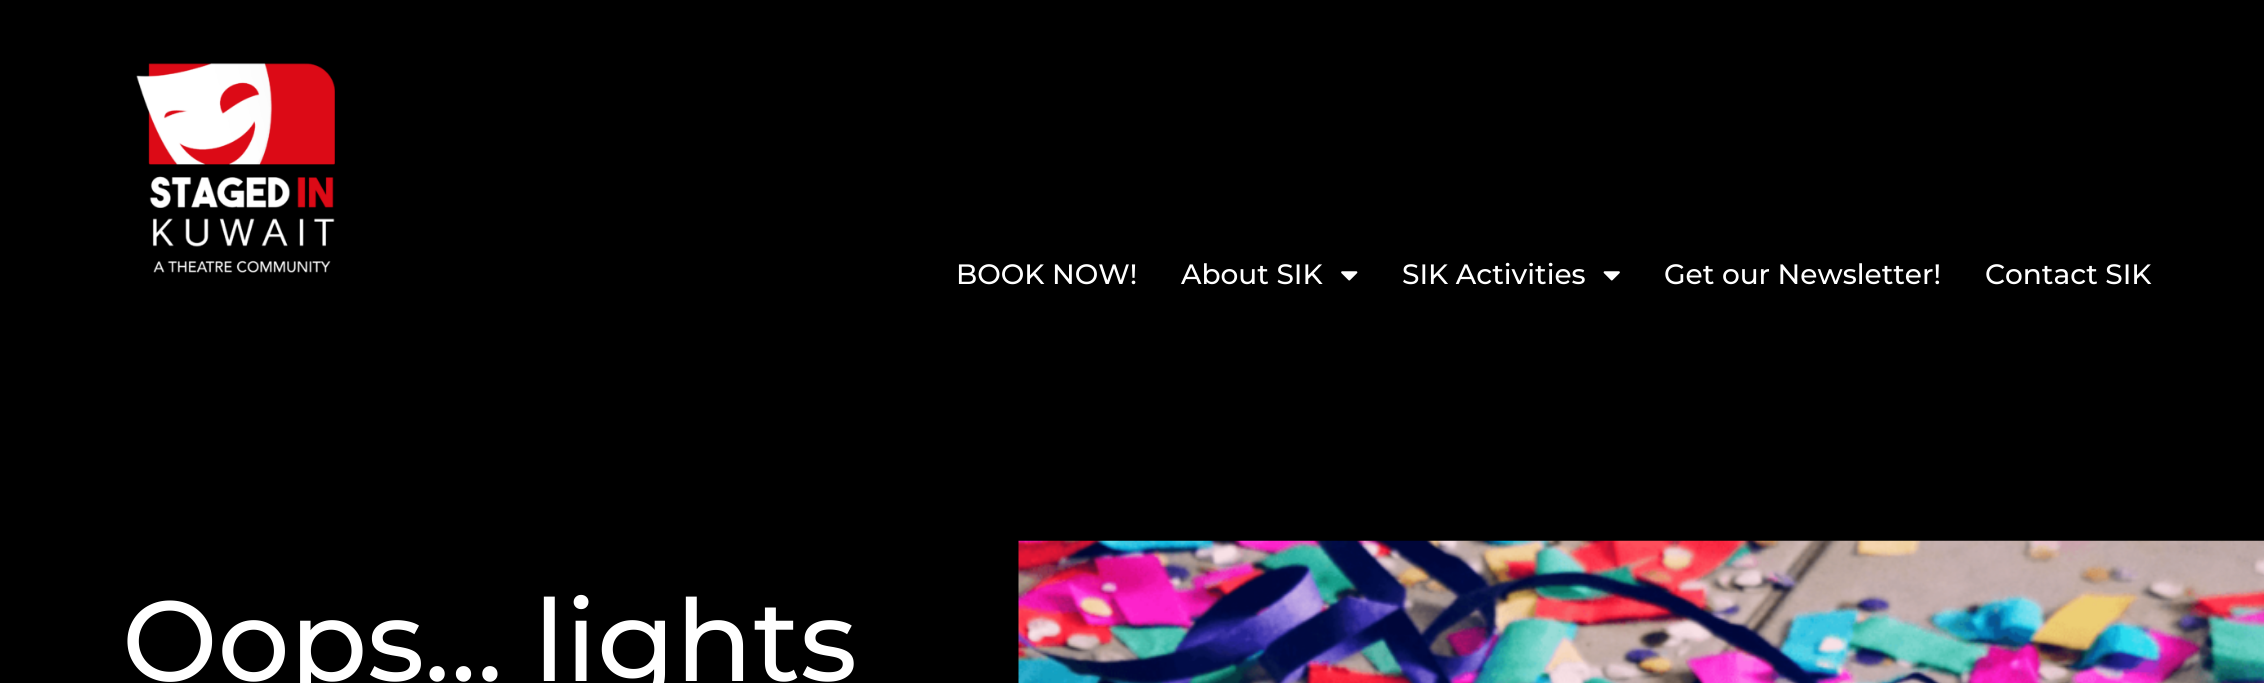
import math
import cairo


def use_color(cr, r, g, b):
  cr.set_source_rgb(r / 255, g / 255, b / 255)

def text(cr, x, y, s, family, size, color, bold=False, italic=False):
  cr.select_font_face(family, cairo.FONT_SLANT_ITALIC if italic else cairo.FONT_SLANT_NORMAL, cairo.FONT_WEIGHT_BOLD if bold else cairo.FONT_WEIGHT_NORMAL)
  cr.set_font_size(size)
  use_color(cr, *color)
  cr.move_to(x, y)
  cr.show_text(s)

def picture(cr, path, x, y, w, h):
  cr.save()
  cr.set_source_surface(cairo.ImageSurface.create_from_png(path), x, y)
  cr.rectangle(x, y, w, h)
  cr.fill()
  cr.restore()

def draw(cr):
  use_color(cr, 0, 0, 0)
  cr.paint()
  picture(cr, "img_01.png", 136, 63, 199, 210)
  picture(cr, "img_02.png", 1341, 271, 17, 10)
  picture(cr, "img_03.png", 1603, 271, 17, 10)
  picture(cr, "img_04.png", 1018, 540, 1246, 143)
  text(cr, 956, 284, "BOOK NOW!", "Montserrat Medium", 28, (255, 255, 255))
  text(cr, 1181, 284, "About SIK", "Montserrat Medium", 28, (255, 255, 255))
  text(cr, 1402, 284, "SIK Activities", "Montserrat Medium", 28, (255, 255, 255))
  text(cr, 1664, 284, "Get our Newsletter!", "Montserrat Medium", 28, (255, 255, 255))
  text(cr, 1985, 284, "Contact SIK", "Montserrat Medium", 28, (255, 255, 255))
  text(cr, 122, 681, "Oops… lights", "Montserrat Medium", 113.75, (255, 255, 255))


surface = cairo.ImageSurface(cairo.FORMAT_RGB24, 2264, 683)
cr = cairo.Context(surface)
options = cairo.FontOptions()
options.set_hint_metrics(cairo.HINT_METRICS_OFF)
options.set_hint_style(cairo.HINT_STYLE_NONE)
cr.set_font_options(options)
cr.set_miter_limit(4)
draw(cr)
surface.write_to_png("out.png")
